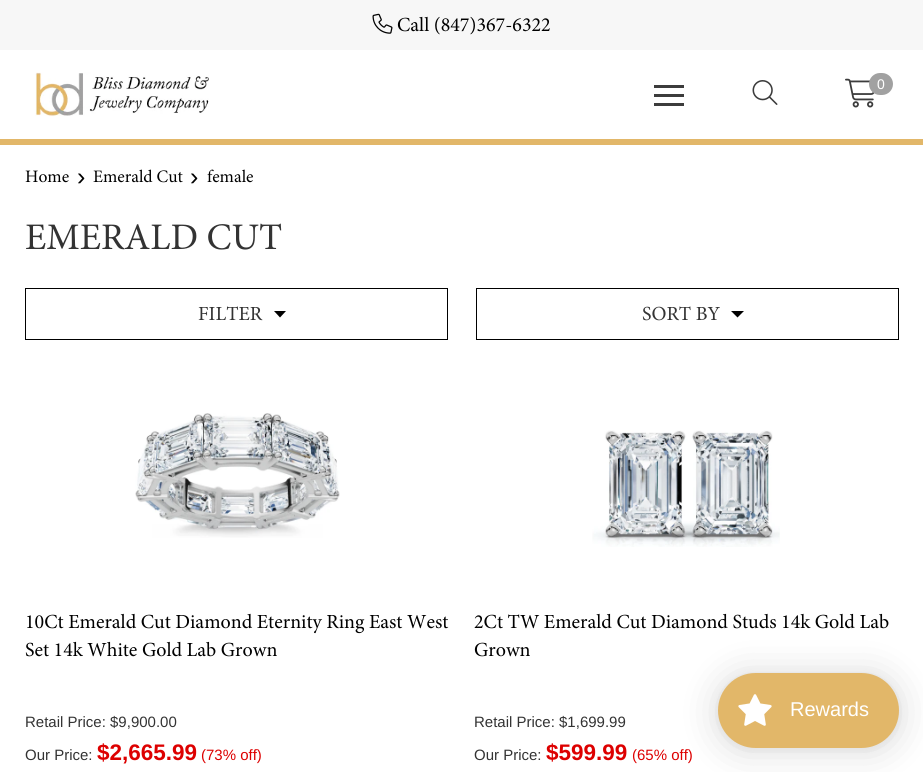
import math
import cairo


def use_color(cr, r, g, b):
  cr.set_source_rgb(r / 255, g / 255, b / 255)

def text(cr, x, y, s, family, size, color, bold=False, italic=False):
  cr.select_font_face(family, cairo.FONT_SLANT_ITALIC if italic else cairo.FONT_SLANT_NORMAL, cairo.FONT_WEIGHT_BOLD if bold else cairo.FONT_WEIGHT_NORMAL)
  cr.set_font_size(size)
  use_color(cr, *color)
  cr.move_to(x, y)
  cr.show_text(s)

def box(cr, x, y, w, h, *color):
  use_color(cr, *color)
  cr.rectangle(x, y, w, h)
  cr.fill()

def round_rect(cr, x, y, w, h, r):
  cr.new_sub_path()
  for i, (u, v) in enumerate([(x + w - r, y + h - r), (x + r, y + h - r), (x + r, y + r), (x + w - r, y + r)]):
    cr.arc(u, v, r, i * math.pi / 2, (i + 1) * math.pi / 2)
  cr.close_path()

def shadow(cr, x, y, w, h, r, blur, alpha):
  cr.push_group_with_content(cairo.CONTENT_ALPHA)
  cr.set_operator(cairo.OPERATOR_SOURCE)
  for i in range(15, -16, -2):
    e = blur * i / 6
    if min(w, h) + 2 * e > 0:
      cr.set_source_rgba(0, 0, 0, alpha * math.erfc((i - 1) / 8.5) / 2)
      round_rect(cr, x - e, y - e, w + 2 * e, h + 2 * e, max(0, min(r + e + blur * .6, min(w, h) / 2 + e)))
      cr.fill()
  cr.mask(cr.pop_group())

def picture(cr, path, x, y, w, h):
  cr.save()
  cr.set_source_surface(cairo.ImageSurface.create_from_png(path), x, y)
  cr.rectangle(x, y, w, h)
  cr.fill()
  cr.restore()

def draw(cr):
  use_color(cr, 255, 255, 255)
  cr.paint()
  box(cr, 0, 0, 923, 50, 247, 247, 247)
  picture(cr, "img_01.png", 372, 13, 21, 21)
  picture(cr, "img_02.png", 35, 72, 174, 45)
  box(cr, 654, 85, 30, 3, 60, 60, 60)
  box(cr, 654, 94, 30, 3, 60, 60, 60)
  box(cr, 654, 103, 30, 3, 60, 60, 60)
  picture(cr, "img_03.png", 752, 80, 26, 25)
  picture(cr, "img_04.png", 845, 78, 30, 30)
  use_color(cr, 161, 161, 161)
  round_rect(cr, 869, 73, 24, 22, 11)
  cr.fill()
  box(cr, 0, 139, 923, 6, 226, 183, 105)
  cr.rectangle(25.5, 288.5, 422, 51)
  use_color(cr, 0, 0, 0)
  cr.set_line_width(1)
  cr.stroke()
  cr.new_path()
  cr.move_to(274, 311)
  cr.line_to(286, 311)
  cr.line_to(280, 317.5)
  cr.close_path()
  cr.fill()
  cr.rectangle(476.5, 288.5, 422, 51)
  cr.stroke()
  cr.new_path()
  cr.move_to(731, 311)
  cr.line_to(744, 311)
  cr.line_to(737.5, 317.5)
  cr.close_path()
  cr.fill()
  picture(cr, "img_05.png", 135, 413, 205, 125)
  picture(cr, "img_06.png", 592, 430, 188, 117)
  use_color(cr, 0, 0, 0)
  shadow(cr, 718, 675, 181, 75, 37.5, 19, 0.15)
  shadow(cr, 718, 674, 181, 75, 37.5, 4, 0.05)
  use_color(cr, 226, 183, 105)
  round_rect(cr, 718, 673, 181, 75, 37.5)
  cr.fill()
  picture(cr, "img_07.png", 738, 694, 34, 32)
  text(cr, 397, 31, "Call (847)367-6322", "Minion", 20, (0, 0, 0))
  text(cr, 877, 89, "0", "Liberation Sans", 14, (255, 255, 255))
  text(cr, 25, 182, "Home", "Minion", 17.5, (0, 0, 0))
  text(cr, 77, 185, "›", "Liberation Sans", 25, (0, 0, 0))
  text(cr, 93, 182, "Emerald Cut", "Minion", 17.5, (0, 0, 0))
  text(cr, 190, 185, "›", "Liberation Sans", 25, (0, 0, 0))
  text(cr, 207, 182, "female", "Minion", 17.5, (0, 0, 0))
  text(cr, 25, 249, "EMERALD CUT", "Minion", 37.5, (51, 51, 51))
  text(cr, 198, 320, "FILTER", "Minion", 20, (51, 51, 51))
  text(cr, 642, 320, "SORT BY", "Minion", 20, (51, 51, 51))
  text(cr, 25, 628, "10Ct Emerald Cut Diamond Eternity Ring East West", "Minion", 20, (0, 0, 0))
  text(cr, 25, 656, "Set 14k White Gold Lab Grown", "Minion", 20, (0, 0, 0))
  text(cr, 25, 727, "Retail Price: $9,900.00", "Liberation Sans", 15, (51, 51, 51))
  text(cr, 25, 760, "Our Price:", "Liberation Sans", 15, (51, 51, 51))
  text(cr, 97, 760, "$2,665.99", "Liberation Sans", 22.5, (221, 0, 0), bold=True)
  text(cr, 201, 760, "(73% off)", "Liberation Sans", 15, (221, 0, 0))
  text(cr, 474, 628, "2Ct TW Emerald Cut Diamond Studs 14k Gold Lab", "Minion", 20, (0, 0, 0))
  text(cr, 474, 656, "Grown", "Minion", 20, (0, 0, 0))
  text(cr, 474, 727, "Retail Price: $1,699.99", "Liberation Sans", 15, (51, 51, 51))
  text(cr, 474, 760, "Our Price:", "Liberation Sans", 15, (51, 51, 51))
  text(cr, 546, 760, "$599.99", "Liberation Sans", 22.5, (221, 0, 0), bold=True)
  text(cr, 632, 760, "(65% off)", "Liberation Sans", 15, (221, 0, 0))
  text(cr, 790, 716, "Rewards", "Liberation Sans", 20, (255, 255, 255))


surface = cairo.ImageSurface(cairo.FORMAT_RGB24, 923, 772)
cr = cairo.Context(surface)
options = cairo.FontOptions()
options.set_hint_metrics(cairo.HINT_METRICS_OFF)
options.set_hint_style(cairo.HINT_STYLE_NONE)
cr.set_font_options(options)
cr.set_miter_limit(4)
draw(cr)
surface.write_to_png("out.png")
